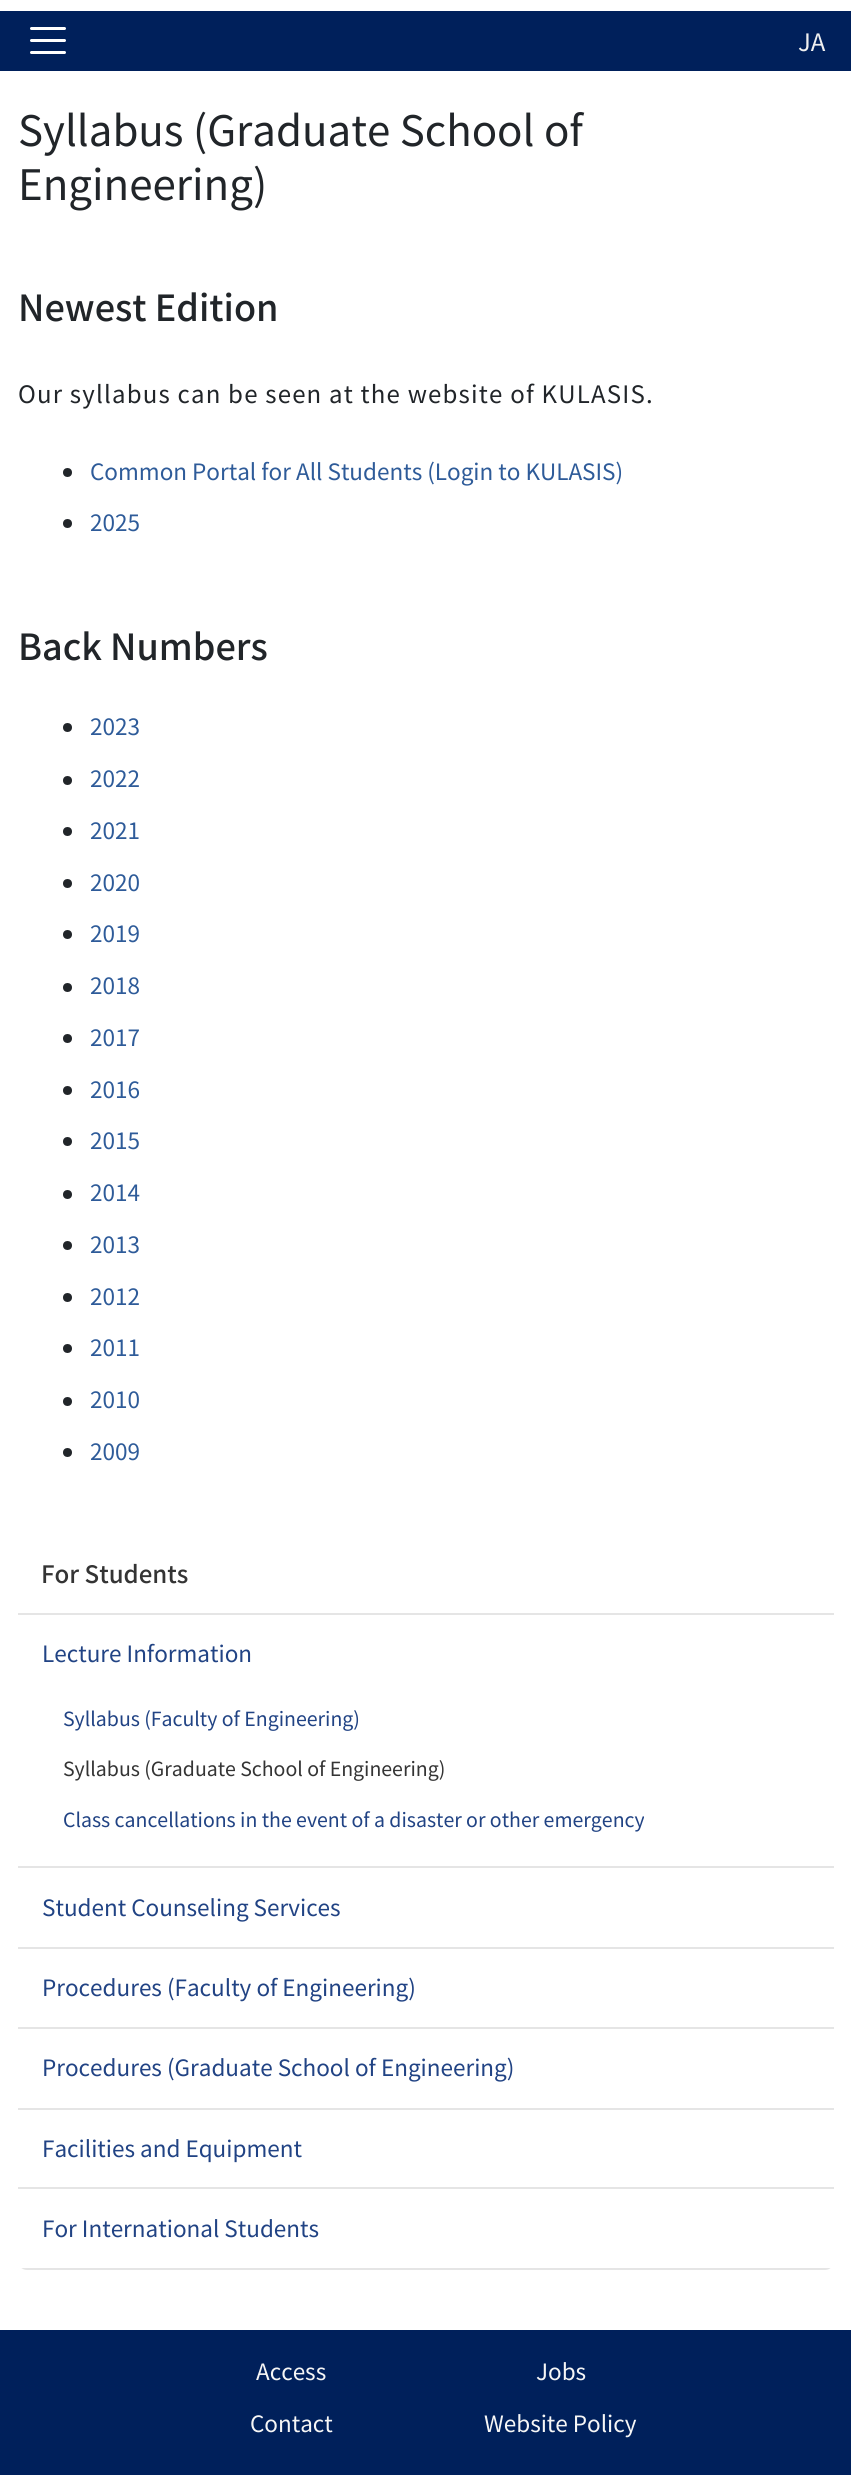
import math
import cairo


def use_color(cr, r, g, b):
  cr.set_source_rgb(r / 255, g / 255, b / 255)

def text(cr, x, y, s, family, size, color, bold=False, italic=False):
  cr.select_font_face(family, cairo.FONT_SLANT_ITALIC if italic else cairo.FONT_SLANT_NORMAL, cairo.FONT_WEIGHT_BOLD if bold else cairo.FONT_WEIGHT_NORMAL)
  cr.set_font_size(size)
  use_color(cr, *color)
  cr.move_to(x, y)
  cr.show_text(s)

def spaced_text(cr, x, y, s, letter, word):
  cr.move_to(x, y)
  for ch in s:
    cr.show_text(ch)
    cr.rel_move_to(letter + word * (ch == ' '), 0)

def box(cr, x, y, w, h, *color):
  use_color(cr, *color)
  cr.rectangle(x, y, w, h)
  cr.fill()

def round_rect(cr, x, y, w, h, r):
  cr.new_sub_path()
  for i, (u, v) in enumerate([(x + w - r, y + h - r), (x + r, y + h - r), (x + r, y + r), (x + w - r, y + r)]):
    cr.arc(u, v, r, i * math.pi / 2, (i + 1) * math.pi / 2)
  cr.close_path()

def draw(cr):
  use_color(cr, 255, 255, 255)
  cr.paint()
  box(cr, 0, 11, 851, 60, 0, 32, 91)
  cr.new_path()
  cr.move_to(31.5, 28.5)
  cr.line_to(64.5, 28.5)
  cr.move_to(31.5, 40.5)
  cr.line_to(64.5, 40.5)
  cr.move_to(31.5, 52.5)
  cr.line_to(64.5, 52.5)
  use_color(cr, 255, 255, 255)
  cr.set_line_width(3)
  cr.set_line_cap(cairo.LINE_CAP_ROUND)
  cr.stroke()
  use_color(cr, 33, 37, 41)
  cr.arc(67.5, 472.5, 4.5, 0, 2 * math.pi)
  cr.fill()
  cr.arc(67.5, 523.5, 4.5, 0, 2 * math.pi)
  cr.fill()
  cr.arc(67.5, 727.5, 4.5, 0, 2 * math.pi)
  cr.fill()
  cr.arc(67.5, 780.5, 4.5, 0, 2 * math.pi)
  cr.fill()
  cr.arc(67.5, 831.5, 4.5, 0, 2 * math.pi)
  cr.fill()
  cr.arc(67.5, 883.5, 4.5, 0, 2 * math.pi)
  cr.fill()
  cr.arc(67.5, 934.5, 4.5, 0, 2 * math.pi)
  cr.fill()
  cr.arc(67.5, 987.5, 4.5, 0, 2 * math.pi)
  cr.fill()
  cr.arc(67.5, 1038.5, 4.5, 0, 2 * math.pi)
  cr.fill()
  cr.arc(67.5, 1090.5, 4.5, 0, 2 * math.pi)
  cr.fill()
  cr.arc(67.5, 1141.5, 4.5, 0, 2 * math.pi)
  cr.fill()
  cr.arc(67.5, 1194.5, 4.5, 0, 2 * math.pi)
  cr.fill()
  cr.arc(67.5, 1245.5, 4.5, 0, 2 * math.pi)
  cr.fill()
  cr.arc(67.5, 1297.5, 4.5, 0, 2 * math.pi)
  cr.fill()
  cr.arc(67.5, 1348.5, 4.5, 0, 2 * math.pi)
  cr.fill()
  cr.arc(67.5, 1401.5, 4.5, 0, 2 * math.pi)
  cr.fill()
  cr.arc(67.5, 1452.5, 4.5, 0, 2 * math.pi)
  cr.fill()
  box(cr, 18, 1613, 816, 2, 229, 229, 229)
  box(cr, 18, 1866, 816, 2, 229, 229, 229)
  box(cr, 18, 1947, 816, 2, 229, 229, 229)
  box(cr, 18, 2027, 816, 2, 229, 229, 229)
  box(cr, 18, 2108, 816, 2, 229, 229, 229)
  box(cr, 18, 2187, 816, 2, 229, 229, 229)
  cr.save()
  round_rect(cr, 18, 1532, 816, 738, 9)
  cr.clip()
  box(cr, 18, 2268, 816, 2, 229, 229, 229)
  cr.restore()
  box(cr, 0, 2330, 851, 145, 0, 32, 91)
  text(cr, 798, 51, "JA", "Noto Sans JP", 24, (240, 240, 240))
  text(cr, 18, 146, "Syllabus (Graduate School of", "Noto Sans JP", 42, (33, 37, 41))
  text(cr, 18, 200, "Engineering)", "Noto Sans JP", 42, (33, 37, 41))
  text(cr, 18, 321, "Newest Edition", "Noto Sans JP Medium", 36, (33, 37, 41))
  cr.select_font_face("Noto Sans JP")
  cr.set_font_size(24)
  spaced_text(cr, 18, 403, "Our syllabus can be seen at the website of KULASIS.", 1.2, 0)
  text(cr, 90, 480, "Common Portal for All Students (Login to KULASIS)", "Noto Sans JP", 22.5, (46, 91, 153))
  text(cr, 90, 531, "2025", "Noto Sans JP", 22.5, (46, 91, 153))
  text(cr, 18, 660, "Back Numbers", "Noto Sans JP Medium", 36, (33, 37, 41))
  text(cr, 90, 735, "2023", "Noto Sans JP", 22.5, (46, 91, 153))
  text(cr, 90, 787, "2022", "Noto Sans JP", 22.5, (46, 91, 153))
  text(cr, 90, 839, "2021", "Noto Sans JP", 22.5, (46, 91, 153))
  text(cr, 90, 891, "2020", "Noto Sans JP", 22.5, (46, 91, 153))
  text(cr, 90, 942, "2019", "Noto Sans JP", 22.5, (46, 91, 153))
  text(cr, 90, 994, "2018", "Noto Sans JP", 22.5, (46, 91, 153))
  text(cr, 90, 1046, "2017", "Noto Sans JP", 22.5, (46, 91, 153))
  text(cr, 90, 1098, "2016", "Noto Sans JP", 22.5, (46, 91, 153))
  text(cr, 90, 1149, "2015", "Noto Sans JP", 22.5, (46, 91, 153))
  text(cr, 90, 1201, "2014", "Noto Sans JP", 22.5, (46, 91, 153))
  text(cr, 90, 1253, "2013", "Noto Sans JP", 22.5, (46, 91, 153))
  text(cr, 90, 1305, "2012", "Noto Sans JP", 22.5, (46, 91, 153))
  text(cr, 90, 1356, "2011", "Noto Sans JP", 22.5, (46, 91, 153))
  text(cr, 90, 1408, "2010", "Noto Sans JP", 22.5, (46, 91, 153))
  text(cr, 90, 1460, "2009", "Noto Sans JP", 22.5, (46, 91, 153))
  text(cr, 41, 1583, "For Students", "Noto Sans JP Medium", 24, (52, 52, 52))
  text(cr, 42, 1662, "Lecture Information", "Noto Sans JP", 22.5, (33, 67, 132))
  text(cr, 63, 1726, "Syllabus (Faculty of Engineering)", "Noto Sans JP", 19.5, (33, 67, 132))
  text(cr, 63, 1776, "Syllabus (Graduate School of Engineering)", "Noto Sans JP", 19.5, (52, 52, 52))
  text(cr, 63, 1827, "Class cancellations in the event of a disaster or other emergency", "Noto Sans JP", 19.5, (33, 67, 132))
  text(cr, 42, 1916, "Student Counseling Services", "Noto Sans JP", 22.5, (33, 67, 132))
  text(cr, 42, 1996, "Procedures (Faculty of Engineering)", "Noto Sans JP", 22.5, (33, 67, 132))
  text(cr, 42, 2076, "Procedures (Graduate School of Engineering)", "Noto Sans JP", 22.5, (33, 67, 132))
  text(cr, 42, 2157, "Facilities and Equipment", "Noto Sans JP", 22.5, (33, 67, 132))
  text(cr, 42, 2237, "For International Students", "Noto Sans JP", 22.5, (33, 67, 132))
  text(cr, 256, 2380, "Access", "Noto Sans JP", 22.5, (246, 246, 246))
  text(cr, 536, 2380, "Jobs", "Noto Sans JP", 22.5, (246, 246, 246))
  text(cr, 250, 2432, "Contact", "Noto Sans JP", 22.5, (246, 246, 246))
  text(cr, 484, 2432, "Website Policy", "Noto Sans JP", 22.5, (246, 246, 246))


surface = cairo.ImageSurface(cairo.FORMAT_RGB24, 851, 2475)
cr = cairo.Context(surface)
options = cairo.FontOptions()
options.set_hint_metrics(cairo.HINT_METRICS_OFF)
options.set_hint_style(cairo.HINT_STYLE_NONE)
cr.set_font_options(options)
cr.set_miter_limit(4)
draw(cr)
surface.write_to_png("out.png")
